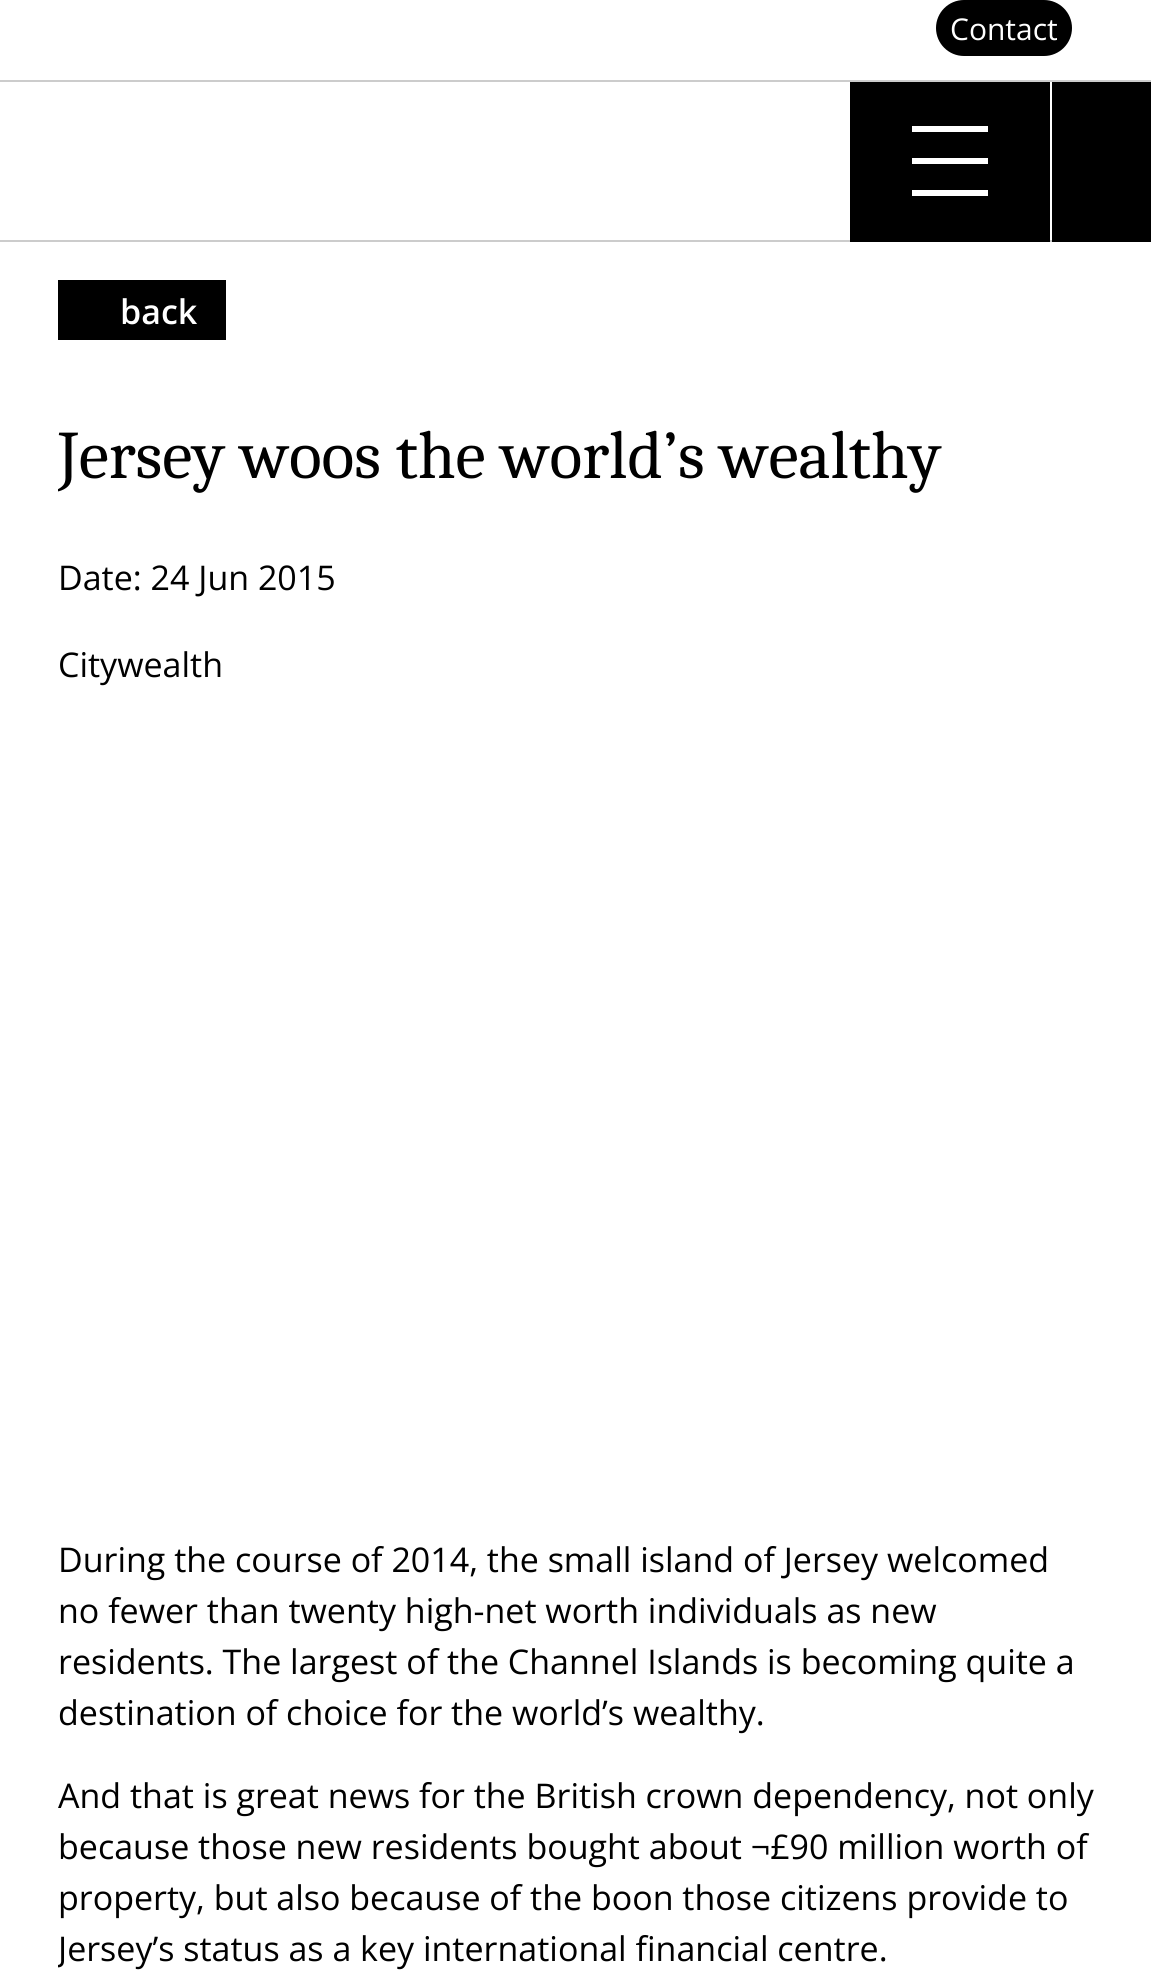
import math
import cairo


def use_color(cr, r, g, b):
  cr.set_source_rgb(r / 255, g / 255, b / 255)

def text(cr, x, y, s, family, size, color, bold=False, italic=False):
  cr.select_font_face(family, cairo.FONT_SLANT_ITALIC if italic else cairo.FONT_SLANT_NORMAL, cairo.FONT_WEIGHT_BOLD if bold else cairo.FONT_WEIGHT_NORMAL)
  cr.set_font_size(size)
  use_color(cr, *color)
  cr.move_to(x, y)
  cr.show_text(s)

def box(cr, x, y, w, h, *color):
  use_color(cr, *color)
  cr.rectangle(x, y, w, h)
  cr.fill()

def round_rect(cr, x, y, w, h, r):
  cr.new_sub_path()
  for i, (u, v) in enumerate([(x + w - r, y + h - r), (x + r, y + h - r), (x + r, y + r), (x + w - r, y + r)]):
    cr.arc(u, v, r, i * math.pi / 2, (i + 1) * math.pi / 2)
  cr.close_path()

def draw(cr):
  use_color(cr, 255, 255, 255)
  cr.paint()
  box(cr, 0, 240, 1052, 2, 204, 204, 204)
  use_color(cr, 0, 0, 0)
  round_rect(cr, 936, 0, 136, 56, 28)
  cr.fill()
  box(cr, 0, 80, 1151, 2, 204, 204, 204)
  box(cr, 850, 82, 200, 160, 0, 0, 0)
  box(cr, 912, 126, 76, 6, 255, 255, 255)
  box(cr, 912, 158, 76, 6, 255, 255, 255)
  box(cr, 912, 190, 76, 6, 255, 255, 255)
  box(cr, 1052, 82, 99, 160, 0, 0, 0)
  box(cr, 58, 280, 168, 60, 0, 0, 0)
  text(cr, 950, 40, "Contact", "Open Sans", 30, (255, 255, 255))
  text(cr, 120, 324, "back", "Open Sans SemiBold", 34, (255, 255, 255))
  cr.save()
  cr.rectangle(58, 200, 1036, 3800)
  cr.clip()
  text(cr, 58, 478, "Jersey woos the world’s wealthy", "Caladea", 68, (0, 0, 0))
  cr.restore()
  text(cr, 58, 590, "Date: 24 Jun 2015", "Open Sans", 34, (0, 0, 0))
  text(cr, 58, 677, "Citywealth", "Open Sans", 34, (0, 0, 0))
  text(cr, 58, 1572, "During the course of 2014, the small island of Jersey welcomed", "Open Sans", 34, (0, 0, 0))
  text(cr, 58, 1623, "no fewer than twenty high-net worth individuals as new", "Open Sans", 34, (0, 0, 0))
  text(cr, 58, 1674, "residents. The largest of the Channel Islands is becoming quite a", "Open Sans", 34, (0, 0, 0))
  text(cr, 58, 1725, "destination of choice for the world’s wealthy.", "Open Sans", 34, (0, 0, 0))
  text(cr, 58, 1808, "And that is great news for the British crown dependency, not only", "Open Sans", 34, (0, 0, 0))
  text(cr, 58, 1859, "because those new residents bought about ¬£90 million worth of", "Open Sans", 34, (0, 0, 0))
  text(cr, 58, 1910, "property, but also because of the boon those citizens provide to", "Open Sans", 34, (0, 0, 0))
  cr.save()
  cr.rectangle(58, 200, 1036, 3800)
  cr.clip()
  text(cr, 58, 1961, "Jersey’s status as a key international financial centre.", "Open Sans", 34, (0, 0, 0))
  cr.restore()


surface = cairo.ImageSurface(cairo.FORMAT_RGB24, 1151, 1975)
cr = cairo.Context(surface)
options = cairo.FontOptions()
options.set_hint_metrics(cairo.HINT_METRICS_OFF)
options.set_hint_style(cairo.HINT_STYLE_NONE)
cr.set_font_options(options)
cr.set_miter_limit(4)
draw(cr)
surface.write_to_png("out.png")
